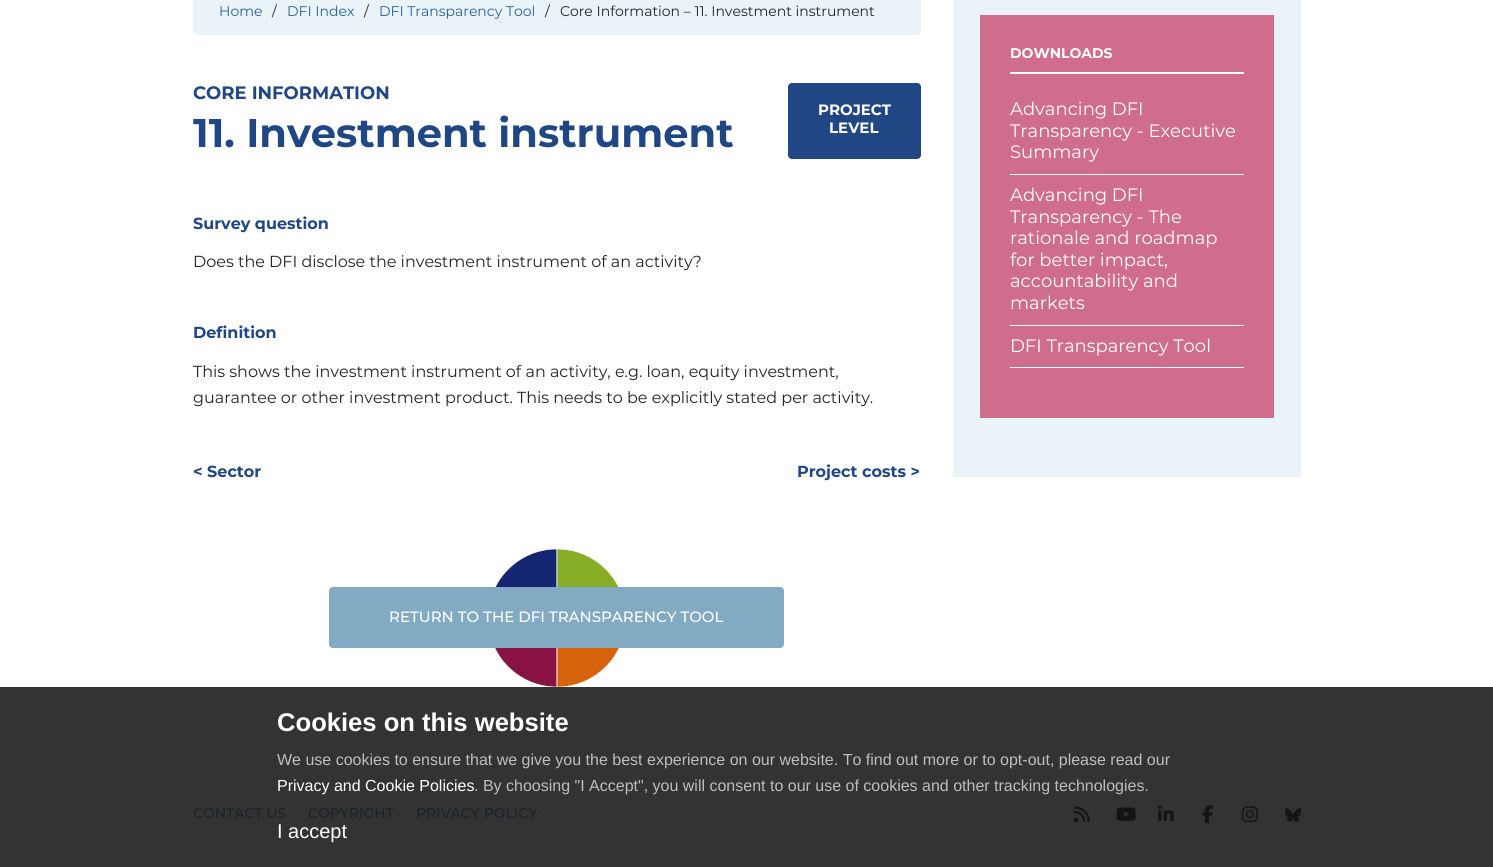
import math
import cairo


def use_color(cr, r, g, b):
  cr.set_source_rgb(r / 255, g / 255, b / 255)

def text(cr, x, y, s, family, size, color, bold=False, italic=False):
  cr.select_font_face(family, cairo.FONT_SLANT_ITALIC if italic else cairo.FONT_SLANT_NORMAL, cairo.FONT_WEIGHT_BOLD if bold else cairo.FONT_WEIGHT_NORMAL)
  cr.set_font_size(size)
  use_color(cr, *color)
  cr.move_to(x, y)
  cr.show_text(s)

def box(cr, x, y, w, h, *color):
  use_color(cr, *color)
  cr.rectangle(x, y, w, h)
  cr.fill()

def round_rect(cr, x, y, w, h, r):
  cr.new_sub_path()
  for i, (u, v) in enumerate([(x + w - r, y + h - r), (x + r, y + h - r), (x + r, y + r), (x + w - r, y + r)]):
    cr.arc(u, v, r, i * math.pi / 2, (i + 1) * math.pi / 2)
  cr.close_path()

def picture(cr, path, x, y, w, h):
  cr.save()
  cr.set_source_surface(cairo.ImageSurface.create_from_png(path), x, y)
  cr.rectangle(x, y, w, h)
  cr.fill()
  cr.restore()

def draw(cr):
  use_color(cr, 255, 255, 255)
  cr.paint()
  box(cr, 0, 687, 1493, 180, 51, 51, 51)
  use_color(cr, 234, 243, 248)
  round_rect(cr, 193, -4, 728, 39, 4)
  cr.fill()
  use_color(cr, 32, 70, 132)
  round_rect(cr, 788, 83, 133, 76, 4)
  cr.fill()
  picture(cr, "img_01.png", 494, 549, 126, 138)
  use_color(cr, 130, 170, 195)
  round_rect(cr, 329, 587, 455, 61, 4)
  cr.fill()
  box(cr, 953, 0, 348, 477, 234, 243, 248)
  box(cr, 980, 15, 294, 403, 208, 108, 140)
  box(cr, 1010, 72, 234, 2, 255, 255, 255)
  box(cr, 1010, 174, 234, 1, 255, 255, 255)
  box(cr, 1010, 325, 234, 1, 255, 255, 255)
  box(cr, 1010, 367, 234, 1, 255, 255, 255)
  picture(cr, "img_02.png", 1074, 806, 16, 17)
  picture(cr, "img_03.png", 1116, 807, 20, 14)
  picture(cr, "img_04.png", 1158, 805, 16, 16)
  picture(cr, "img_05.png", 1202, 805, 11, 19)
  picture(cr, "img_06.png", 1242, 806, 16, 17)
  picture(cr, "img_07.png", 1285, 808, 16, 14)
  text(cr, 219, 16, "Home", "Montserrat", 14, (40, 98, 154))
  text(cr, 272, 16, "/", "Montserrat", 14, (33, 37, 41))
  text(cr, 287, 16, "DFI Index", "Montserrat", 14, (40, 98, 154))
  text(cr, 364, 16, "/", "Montserrat", 14, (33, 37, 41))
  text(cr, 379, 16, "DFI Transparency Tool", "Montserrat", 14, (40, 98, 154))
  text(cr, 545, 16, "/", "Montserrat", 14, (33, 37, 41))
  text(cr, 560, 16, "Core Information – 11. Investment instrument", "Montserrat", 14, (33, 37, 41))
  text(cr, 193, 99, "CORE INFORMATION", "Montserrat", 18, (32, 70, 132), bold=True)
  text(cr, 193, 147, "11. Investment instrument", "Montserrat", 40, (32, 70, 132), bold=True)
  text(cr, 818, 115, "PROJECT", "Montserrat", 15, (255, 255, 255), bold=True)
  text(cr, 829, 133, "LEVEL", "Montserrat", 15, (255, 255, 255), bold=True)
  text(cr, 193, 229, "Survey question", "Montserrat", 16, (32, 70, 132), bold=True)
  text(cr, 193, 267, "Does the DFI disclose the investment instrument of an activity?", "Montserrat", 16, (33, 37, 41))
  text(cr, 193, 338, "Definition", "Montserrat", 16, (32, 70, 132), bold=True)
  text(cr, 193, 377, "This shows the investment instrument of an activity, e.g. loan, equity investment,", "Montserrat", 16, (33, 37, 41))
  text(cr, 193, 403, "guarantee or other investment product. This needs to be explicitly stated per activity.", "Montserrat", 16, (33, 37, 41))
  text(cr, 193, 477, "< Sector", "Montserrat", 16, (32, 70, 132), bold=True)
  text(cr, 797, 477, "Project costs >", "Montserrat", 16, (32, 70, 132), bold=True)
  text(cr, 389, 622, "RETURN TO THE DFI TRANSPARENCY TOOL", "Montserrat Medium", 15, (255, 255, 255))
  text(cr, 1010, 58, "DOWNLOADS", "Montserrat", 14, (255, 255, 255), bold=True)
  text(cr, 1010, 115, "Advancing DFI", "Montserrat", 18, (255, 255, 255))
  text(cr, 1010, 137, "Transparency - Executive", "Montserrat", 18, (255, 255, 255))
  text(cr, 1010, 158, "Summary", "Montserrat", 18, (255, 255, 255))
  text(cr, 1010, 201, "Advancing DFI", "Montserrat", 18, (255, 255, 255))
  text(cr, 1010, 223, "Transparency - The", "Montserrat", 18, (255, 255, 255))
  text(cr, 1010, 244, "rationale and roadmap", "Montserrat", 18, (255, 255, 255))
  text(cr, 1010, 266, "for better impact,", "Montserrat", 18, (255, 255, 255))
  text(cr, 1010, 287, "accountability and", "Montserrat", 18, (255, 255, 255))
  text(cr, 1010, 309, "markets", "Montserrat", 18, (255, 255, 255))
  text(cr, 1010, 352, "DFI Transparency Tool", "Montserrat", 18, (255, 255, 255))
  text(cr, 193, 818, "CONTACT US", "Montserrat Medium", 14, (26, 34, 39))
  text(cr, 308, 818, "COPYRIGHT", "Montserrat Medium", 14, (26, 34, 39))
  text(cr, 416, 818, "PRIVACY POLICY", "Montserrat Medium", 14, (26, 34, 39))
  text(cr, 277, 731, "Cookies on this website", "Liberation Sans", 25.6, (255, 255, 255), bold=True)
  text(cr, 277, 765, "We use cookies to ensure that we give you the best experience on our website. To find out more or to opt-out, please read our", "Liberation Sans", 16, (190, 190, 190))
  text(cr, 277, 791, "Privacy and Cookie Policies", "Liberation Sans", 16, (255, 255, 255))
  text(cr, 474, 791, ". By choosing \"I Accept\", you will consent to our use of cookies and other tracking technologies.", "Liberation Sans", 16, (190, 190, 190))
  text(cr, 277, 838, "I accept", "Liberation Sans", 20, (255, 255, 255))


surface = cairo.ImageSurface(cairo.FORMAT_RGB24, 1493, 867)
cr = cairo.Context(surface)
options = cairo.FontOptions()
options.set_hint_metrics(cairo.HINT_METRICS_OFF)
options.set_hint_style(cairo.HINT_STYLE_NONE)
cr.set_font_options(options)
cr.set_miter_limit(4)
draw(cr)
surface.write_to_png("out.png")
